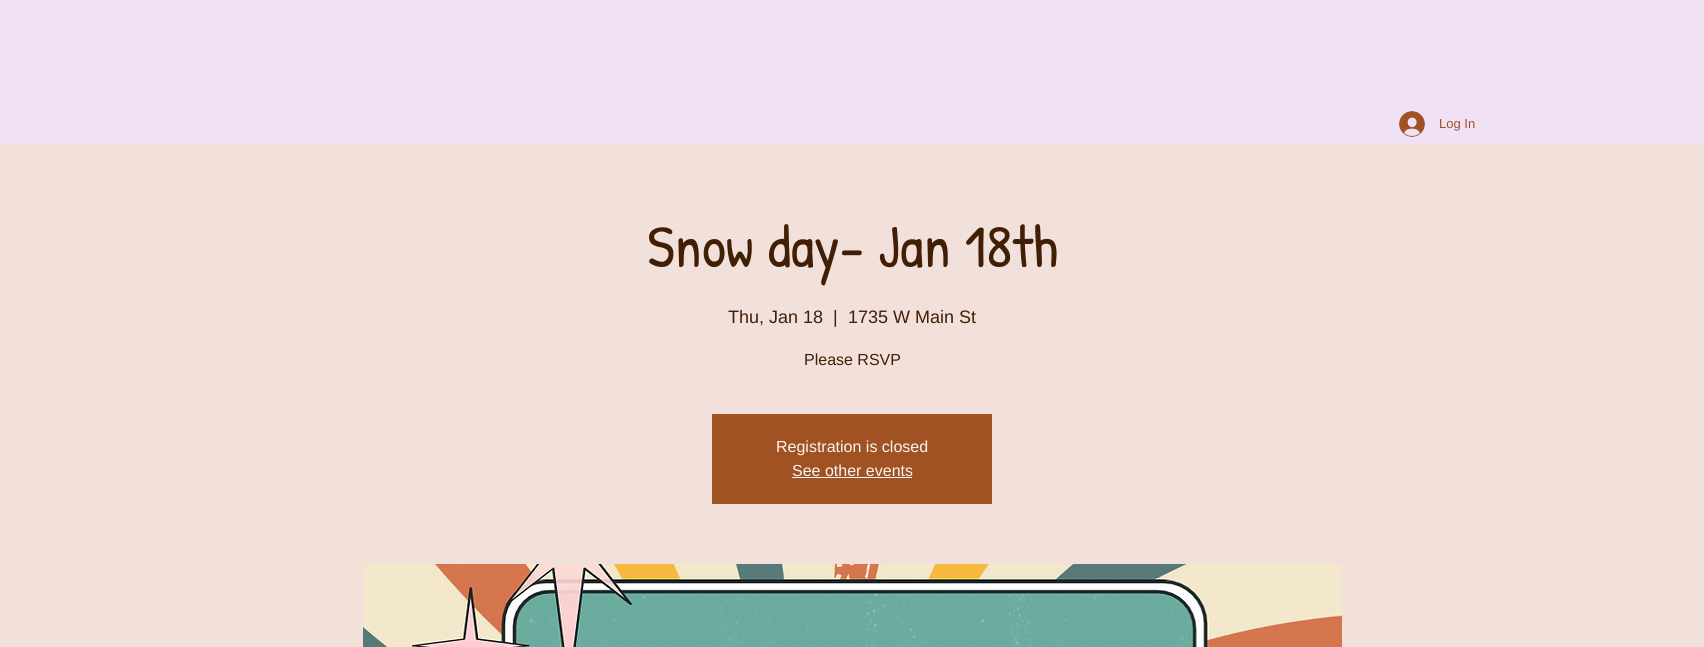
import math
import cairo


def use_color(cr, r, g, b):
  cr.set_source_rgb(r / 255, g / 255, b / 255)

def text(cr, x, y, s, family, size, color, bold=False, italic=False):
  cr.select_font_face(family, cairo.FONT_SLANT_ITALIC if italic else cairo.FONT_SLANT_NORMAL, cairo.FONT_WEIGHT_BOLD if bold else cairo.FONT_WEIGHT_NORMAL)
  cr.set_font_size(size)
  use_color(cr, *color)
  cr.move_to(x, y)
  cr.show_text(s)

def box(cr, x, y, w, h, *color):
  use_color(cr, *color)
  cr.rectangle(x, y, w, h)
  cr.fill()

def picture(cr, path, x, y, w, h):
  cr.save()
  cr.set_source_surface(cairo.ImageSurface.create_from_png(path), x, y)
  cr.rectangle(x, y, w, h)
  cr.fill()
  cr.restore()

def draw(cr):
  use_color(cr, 241, 225, 244)
  cr.paint()
  picture(cr, "img_01.png", 1399, 111, 26, 26)
  box(cr, 0, 144, 1704, 503, 242, 225, 219)
  box(cr, 712, 414, 280, 90, 160, 82, 34)
  box(cr, 792, 477, 120, 1, 248, 244, 241)
  picture(cr, "img_02.png", 363, 564, 979, 83)
  text(cr, 1439, 128, "Log In", "Liberation Sans", 13, (160, 82, 34))
  text(cr, 647, 267, "Snow day- Jan 18th", "Patrick Hand", 60, (65, 30, 6))
  text(cr, 728, 323, "Thu, Jan 18", "Liberation Sans", 18, (65, 30, 6))
  text(cr, 833, 323, "|", "Liberation Sans", 18, (65, 30, 6))
  text(cr, 848, 323, "1735 W Main St", "Liberation Sans", 18, (65, 30, 6))
  text(cr, 804, 365, "Please RSVP", "Liberation Sans", 16, (65, 30, 6))
  text(cr, 776, 452, "Registration is closed", "Liberation Sans", 16, (248, 244, 241))
  text(cr, 792, 476, "See other events", "Liberation Sans", 16, (248, 244, 241))


surface = cairo.ImageSurface(cairo.FORMAT_RGB24, 1704, 647)
cr = cairo.Context(surface)
options = cairo.FontOptions()
options.set_hint_metrics(cairo.HINT_METRICS_OFF)
options.set_hint_style(cairo.HINT_STYLE_NONE)
cr.set_font_options(options)
cr.set_miter_limit(4)
draw(cr)
surface.write_to_png("out.png")
